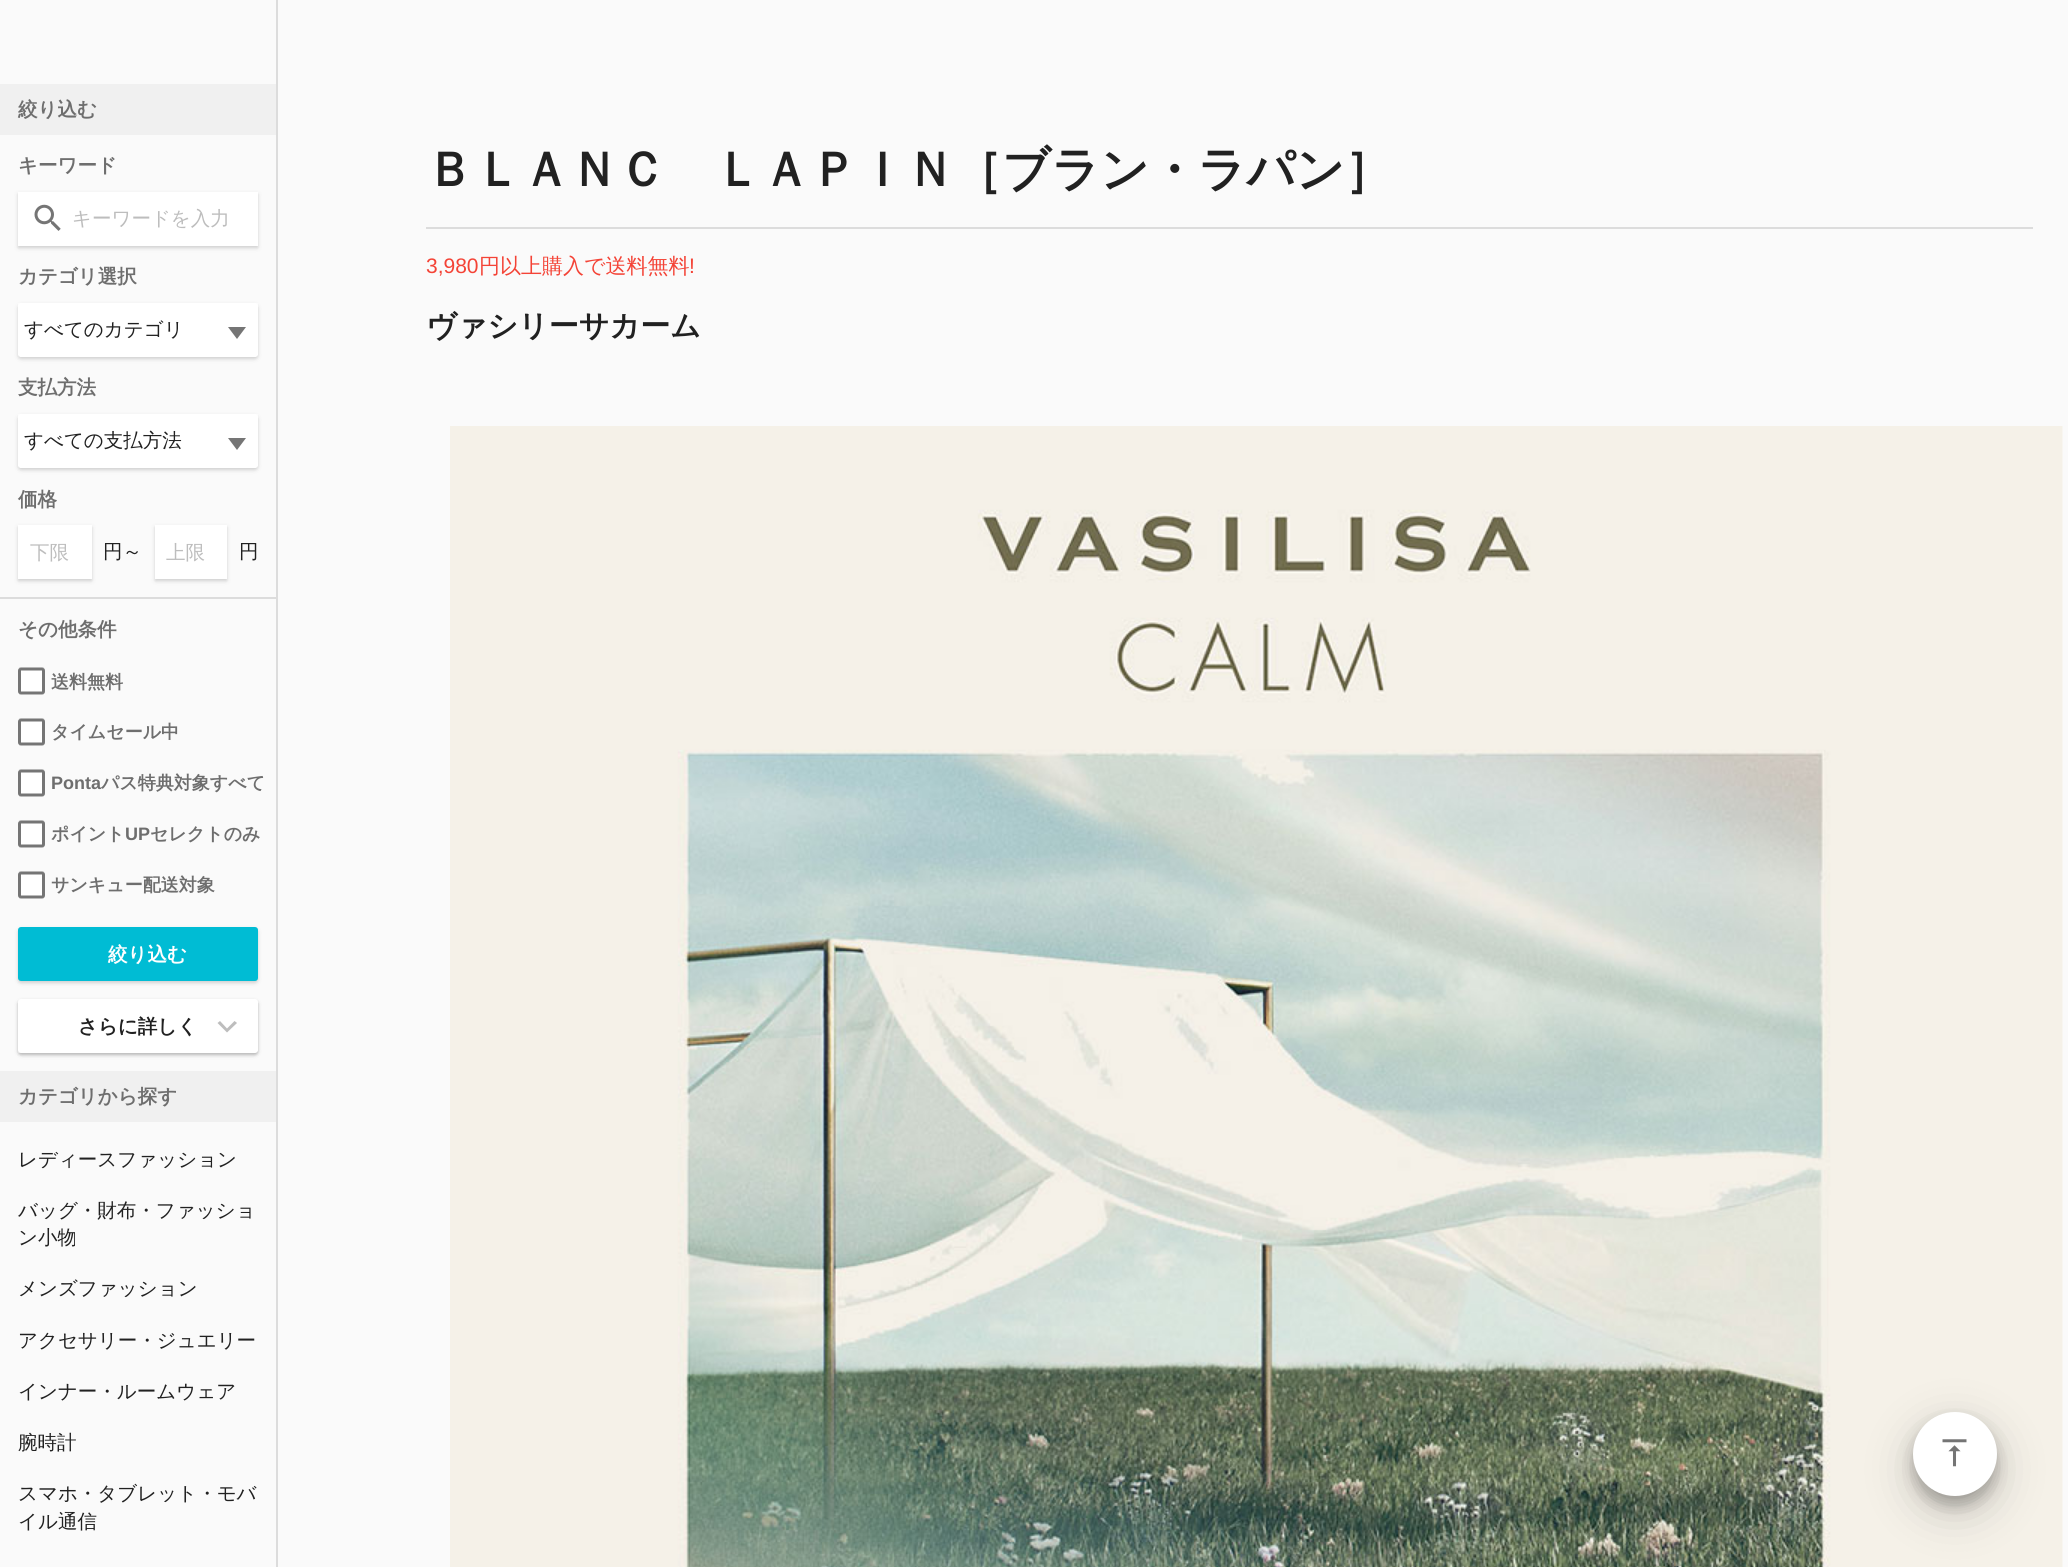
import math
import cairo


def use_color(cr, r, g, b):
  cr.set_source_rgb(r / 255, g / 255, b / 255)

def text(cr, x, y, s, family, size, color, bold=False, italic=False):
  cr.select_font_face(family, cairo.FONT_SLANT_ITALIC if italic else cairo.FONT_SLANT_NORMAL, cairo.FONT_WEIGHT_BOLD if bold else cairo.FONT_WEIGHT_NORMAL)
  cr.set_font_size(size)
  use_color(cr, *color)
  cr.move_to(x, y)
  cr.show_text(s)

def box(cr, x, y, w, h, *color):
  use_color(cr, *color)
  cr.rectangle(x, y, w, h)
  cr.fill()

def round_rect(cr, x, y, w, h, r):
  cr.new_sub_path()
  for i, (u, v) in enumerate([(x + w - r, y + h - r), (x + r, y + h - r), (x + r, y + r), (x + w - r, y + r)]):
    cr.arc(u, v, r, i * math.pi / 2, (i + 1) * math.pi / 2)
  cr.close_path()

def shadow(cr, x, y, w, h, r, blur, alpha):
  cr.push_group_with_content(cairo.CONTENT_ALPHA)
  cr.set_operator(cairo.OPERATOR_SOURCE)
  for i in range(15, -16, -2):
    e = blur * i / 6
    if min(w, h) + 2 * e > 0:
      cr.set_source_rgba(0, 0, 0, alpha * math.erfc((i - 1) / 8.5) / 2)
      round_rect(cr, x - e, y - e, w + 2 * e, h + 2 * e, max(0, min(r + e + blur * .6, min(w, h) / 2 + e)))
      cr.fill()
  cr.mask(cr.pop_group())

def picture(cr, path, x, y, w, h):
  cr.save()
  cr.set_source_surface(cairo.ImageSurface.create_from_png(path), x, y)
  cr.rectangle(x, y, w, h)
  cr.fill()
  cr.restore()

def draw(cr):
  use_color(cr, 250, 250, 250)
  cr.paint()
  box(cr, 276, 0, 2, 1567, 220, 220, 220)
  box(cr, 0, 84, 276, 51, 240, 240, 240)
  use_color(cr, 0, 0, 0)
  shadow(cr, 18, 194, 240, 54, 0, 3, 0.06)
  shadow(cr, 18, 194, 240, 54, 0, 1.5, 0.12)
  box(cr, 18, 192, 240, 54, 255, 255, 255)
  picture(cr, "img_01.png", 34, 204, 27, 27)
  box(cr, 18, 303, 240, 54, 255, 255, 255)
  use_color(cr, 117, 117, 117)
  cr.new_path()
  cr.move_to(228, 327)
  cr.line_to(246, 327)
  cr.line_to(237, 339)
  cr.close_path()
  cr.fill()
  cr.save()
  cr.set_fill_rule(cairo.FILL_RULE_EVEN_ODD)
  cr.new_path()
  cr.move_to(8, 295)
  cr.line_to(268, 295)
  cr.line_to(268, 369)
  cr.line_to(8, 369)
  cr.close_path()
  cr.move_to(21, 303)
  cr.line_to(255, 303)
  cr.curve_to(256.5, 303, 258, 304.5, 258, 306)
  cr.line_to(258, 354)
  cr.curve_to(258, 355.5, 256.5, 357, 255, 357)
  cr.line_to(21, 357)
  cr.curve_to(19.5, 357, 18, 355.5, 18, 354)
  cr.line_to(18, 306)
  cr.curve_to(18, 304.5, 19.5, 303, 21, 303)
  cr.close_path()
  cr.clip()
  use_color(cr, 0, 0, 0)
  shadow(cr, 18, 305, 240, 54, 3, 3, 0.06)
  cr.restore()
  cr.save()
  cr.set_fill_rule(cairo.FILL_RULE_EVEN_ODD)
  cr.new_path()
  cr.move_to(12, 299)
  cr.line_to(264, 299)
  cr.line_to(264, 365)
  cr.line_to(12, 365)
  cr.close_path()
  cr.move_to(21, 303)
  cr.line_to(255, 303)
  cr.curve_to(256.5, 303, 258, 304.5, 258, 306)
  cr.line_to(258, 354)
  cr.curve_to(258, 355.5, 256.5, 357, 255, 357)
  cr.line_to(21, 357)
  cr.curve_to(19.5, 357, 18, 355.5, 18, 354)
  cr.line_to(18, 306)
  cr.curve_to(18, 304.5, 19.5, 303, 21, 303)
  cr.close_path()
  cr.clip()
  use_color(cr, 0, 0, 0)
  shadow(cr, 18, 305, 240, 54, 3, 1.5, 0.12)
  cr.restore()
  box(cr, 18, 414, 240, 54, 255, 255, 255)
  use_color(cr, 117, 117, 117)
  cr.new_path()
  cr.move_to(228, 438)
  cr.line_to(246, 438)
  cr.line_to(237, 450)
  cr.close_path()
  cr.fill()
  cr.save()
  cr.set_fill_rule(cairo.FILL_RULE_EVEN_ODD)
  cr.new_path()
  cr.move_to(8, 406)
  cr.line_to(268, 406)
  cr.line_to(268, 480)
  cr.line_to(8, 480)
  cr.close_path()
  cr.move_to(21, 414)
  cr.line_to(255, 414)
  cr.curve_to(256.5, 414, 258, 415.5, 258, 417)
  cr.line_to(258, 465)
  cr.curve_to(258, 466.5, 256.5, 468, 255, 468)
  cr.line_to(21, 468)
  cr.curve_to(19.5, 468, 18, 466.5, 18, 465)
  cr.line_to(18, 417)
  cr.curve_to(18, 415.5, 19.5, 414, 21, 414)
  cr.close_path()
  cr.clip()
  use_color(cr, 0, 0, 0)
  shadow(cr, 18, 416, 240, 54, 3, 3, 0.06)
  cr.restore()
  cr.save()
  cr.set_fill_rule(cairo.FILL_RULE_EVEN_ODD)
  cr.new_path()
  cr.move_to(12, 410)
  cr.line_to(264, 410)
  cr.line_to(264, 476)
  cr.line_to(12, 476)
  cr.close_path()
  cr.move_to(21, 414)
  cr.line_to(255, 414)
  cr.curve_to(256.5, 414, 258, 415.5, 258, 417)
  cr.line_to(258, 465)
  cr.curve_to(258, 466.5, 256.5, 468, 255, 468)
  cr.line_to(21, 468)
  cr.curve_to(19.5, 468, 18, 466.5, 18, 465)
  cr.line_to(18, 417)
  cr.curve_to(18, 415.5, 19.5, 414, 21, 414)
  cr.close_path()
  cr.clip()
  use_color(cr, 0, 0, 0)
  shadow(cr, 18, 416, 240, 54, 3, 1.5, 0.12)
  cr.restore()
  use_color(cr, 0, 0, 0)
  shadow(cr, 18, 527, 74, 54, 0, 3, 0.06)
  shadow(cr, 18, 527, 74, 54, 0, 1.5, 0.12)
  box(cr, 18, 525, 74, 54, 255, 255, 255)
  use_color(cr, 0, 0, 0)
  shadow(cr, 155, 527, 72, 54, 0, 3, 0.06)
  shadow(cr, 155, 527, 72, 54, 0, 1.5, 0.12)
  box(cr, 155, 525, 72, 54, 255, 255, 255)
  box(cr, 0, 597, 276, 2, 220, 220, 220)
  box(cr, 18, 668, 27, 27, 255, 255, 255)
  picture(cr, "img_02.png", 18, 667, 27, 28)
  box(cr, 18, 719, 27, 27, 255, 255, 255)
  picture(cr, "img_02.png", 18, 718, 27, 28)
  box(cr, 18, 770, 27, 27, 255, 255, 255)
  picture(cr, "img_02.png", 18, 769, 27, 28)
  box(cr, 18, 821, 27, 27, 255, 255, 255)
  picture(cr, "img_02.png", 18, 820, 27, 28)
  box(cr, 18, 872, 27, 27, 255, 255, 255)
  picture(cr, "img_02.png", 18, 871, 27, 28)
  use_color(cr, 0, 0, 0)
  shadow(cr, 18, 929, 240, 54, 3, 3, 0.06)
  shadow(cr, 18, 929, 240, 54, 3, 1.5, 0.12)
  use_color(cr, 0, 188, 212)
  round_rect(cr, 18, 927, 240, 54, 3)
  cr.fill()
  use_color(cr, 0, 0, 0)
  shadow(cr, 18, 1001, 240, 54, 3, 3, 0.06)
  shadow(cr, 18, 1001, 240, 54, 3, 1.5, 0.12)
  use_color(cr, 255, 255, 255)
  round_rect(cr, 18, 999, 240, 54, 3)
  cr.fill()
  cr.save()
  cr.set_fill_rule(cairo.FILL_RULE_EVEN_ODD)
  cr.new_path()
  cr.move_to(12, 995)
  cr.line_to(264, 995)
  cr.line_to(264, 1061)
  cr.line_to(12, 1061)
  cr.close_path()
  cr.move_to(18, 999)
  cr.line_to(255, 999)
  cr.curve_to(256.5, 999, 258, 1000.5, 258, 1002)
  cr.line_to(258, 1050)
  cr.curve_to(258, 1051.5, 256.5, 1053, 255, 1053)
  cr.line_to(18, 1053)
  cr.close_path()
  cr.clip()
  use_color(cr, 0, 0, 0)
  shadow(cr, 18, 1001, 240, 54, 3, 1.5, 0.12)
  cr.restore()
  use_color(cr, 189, 189, 189)
  cr.new_path()
  cr.move_to(237, 1023)
  cr.line_to(227, 1032.5)
  cr.line_to(227, 1028.5)
  cr.line_to(234.5, 1021)
  cr.close_path()
  cr.move_to(227, 1032.5)
  cr.line_to(217.5, 1023)
  cr.line_to(220, 1021)
  cr.line_to(227, 1028.5)
  cr.close_path()
  cr.fill()
  box(cr, 0, 1071, 276, 51, 240, 240, 240)
  box(cr, 426, 227, 1607, 2, 220, 220, 220)
  picture(cr, "img_03.png", 450, 426, 1613, 1141)
  use_color(cr, 0, 0, 0)
  shadow(cr, 1913, 1427, 84, 84, 42, 22.5, 0.19)
  shadow(cr, 1913, 1421, 84, 84, 42, 7.5, 0.23)
  use_color(cr, 255, 255, 255)
  cr.arc(1955, 1454, 42, 0, 2 * math.pi)
  cr.fill()
  picture(cr, "img_04.png", 1942, 1439, 25, 28)
  text(cr, 18, 116, "絞り込む", "WenQuanYi Zen Hei", 19.5, (110, 110, 110), bold=True)
  text(cr, 18, 172, "キーワード", "WenQuanYi Zen Hei", 19.5, (110, 110, 110), bold=True)
  text(cr, 72, 225, "キーワードを入力", "WenQuanYi Zen Hei Medium", 19.5, (189, 189, 189))
  text(cr, 18, 283, "カテゴリ選択", "WenQuanYi Zen Hei", 19.5, (110, 110, 110), bold=True)
  text(cr, 24, 336, "すべてのカテゴリ", "WenQuanYi Zen Hei Medium", 19.5, (33, 33, 33))
  text(cr, 18, 394, "支払方法", "WenQuanYi Zen Hei", 19.5, (110, 110, 110), bold=True)
  text(cr, 24, 447, "すべての支払方法", "WenQuanYi Zen Hei Medium", 19.5, (33, 33, 33))
  text(cr, 18, 506, "価格", "WenQuanYi Zen Hei", 19.5, (110, 110, 110), bold=True)
  text(cr, 30, 559, "下限", "WenQuanYi Zen Hei Medium", 19.5, (189, 189, 189))
  text(cr, 103, 558, "円～", "WenQuanYi Zen Hei Medium", 19.5, (33, 33, 33))
  text(cr, 166, 559, "上限", "WenQuanYi Zen Hei Medium", 19.5, (189, 189, 189))
  text(cr, 239, 558, "円", "WenQuanYi Zen Hei Medium", 19.5, (33, 33, 33))
  text(cr, 18, 636, "その他条件", "WenQuanYi Zen Hei", 19.5, (110, 110, 110), bold=True)
  text(cr, 51, 688, "送料無料", "WenQuanYi Zen Hei", 18, (110, 110, 110), bold=True)
  text(cr, 51, 738, "タイムセール中", "WenQuanYi Zen Hei", 18, (110, 110, 110), bold=True)
  text(cr, 51, 789, "Ponta", "Liberation Sans", 18, (110, 110, 110), bold=True)
  text(cr, 101, 789, "パス特典対象すべて", "WenQuanYi Zen Hei", 18, (110, 110, 110), bold=True)
  text(cr, 51, 840, "ポイント", "WenQuanYi Zen Hei", 18, (110, 110, 110), bold=True)
  text(cr, 125, 840, "UP", "Liberation Sans", 18, (110, 110, 110), bold=True)
  text(cr, 150, 840, "セレクトのみ", "WenQuanYi Zen Hei", 18, (110, 110, 110), bold=True)
  text(cr, 51, 891, "サンキュー配送対象", "WenQuanYi Zen Hei", 18, (110, 110, 110), bold=True)
  text(cr, 108, 961, "絞り込む", "WenQuanYi Zen Hei", 19.5, (255, 255, 255), bold=True)
  text(cr, 78, 1033, "さらに詳しく", "WenQuanYi Zen Hei", 19.5, (33, 33, 33), bold=True)
  text(cr, 18, 1103, "カテゴリから探す", "WenQuanYi Zen Hei", 19.5, (110, 110, 110), bold=True)
  text(cr, 18, 1166, "レディースファッション", "WenQuanYi Zen Hei Medium", 19.5, (33, 33, 33))
  text(cr, 18, 1217, "バッグ・財布・ファッショ", "WenQuanYi Zen Hei Medium", 19.5, (33, 33, 33))
  text(cr, 18, 1244, "ン小物", "WenQuanYi Zen Hei Medium", 19.5, (33, 33, 33))
  text(cr, 18, 1295, "メンズファッション", "WenQuanYi Zen Hei Medium", 19.5, (33, 33, 33))
  text(cr, 18, 1347, "アクセサリー・ジュエリー", "WenQuanYi Zen Hei Medium", 19.5, (33, 33, 33))
  text(cr, 18, 1398, "インナー・ルームウェア", "WenQuanYi Zen Hei Medium", 19.5, (33, 33, 33))
  text(cr, 18, 1449, "腕時計", "WenQuanYi Zen Hei Medium", 19.5, (33, 33, 33))
  text(cr, 18, 1500, "スマホ・タブレット・モバ", "WenQuanYi Zen Hei Medium", 19.5, (33, 33, 33))
  text(cr, 18, 1528, "イル通信", "WenQuanYi Zen Hei Medium", 19.5, (33, 33, 33))
  text(cr, 426, 186, "ＢＬＡＮＣ　ＬＡＰＩＮ［ブラン・ラパン］", "WenQuanYi Zen Hei", 48, (33, 33, 33), bold=True)
  text(cr, 426, 273, "3,980", "Liberation Sans", 21, (244, 67, 54))
  text(cr, 479, 273, "円以上購入で送料無料", "WenQuanYi Zen Hei Medium", 21, (244, 67, 54))
  text(cr, 689, 273, "!", "Liberation Sans", 21, (244, 67, 54))
  text(cr, 426, 336, "ヴァシリーサカーム", "WenQuanYi Zen Hei", 30, (33, 33, 33), bold=True)


surface = cairo.ImageSurface(cairo.FORMAT_RGB24, 2068, 1567)
cr = cairo.Context(surface)
options = cairo.FontOptions()
options.set_hint_metrics(cairo.HINT_METRICS_OFF)
options.set_hint_style(cairo.HINT_STYLE_NONE)
cr.set_font_options(options)
cr.set_miter_limit(4)
draw(cr)
surface.write_to_png("out.png")
